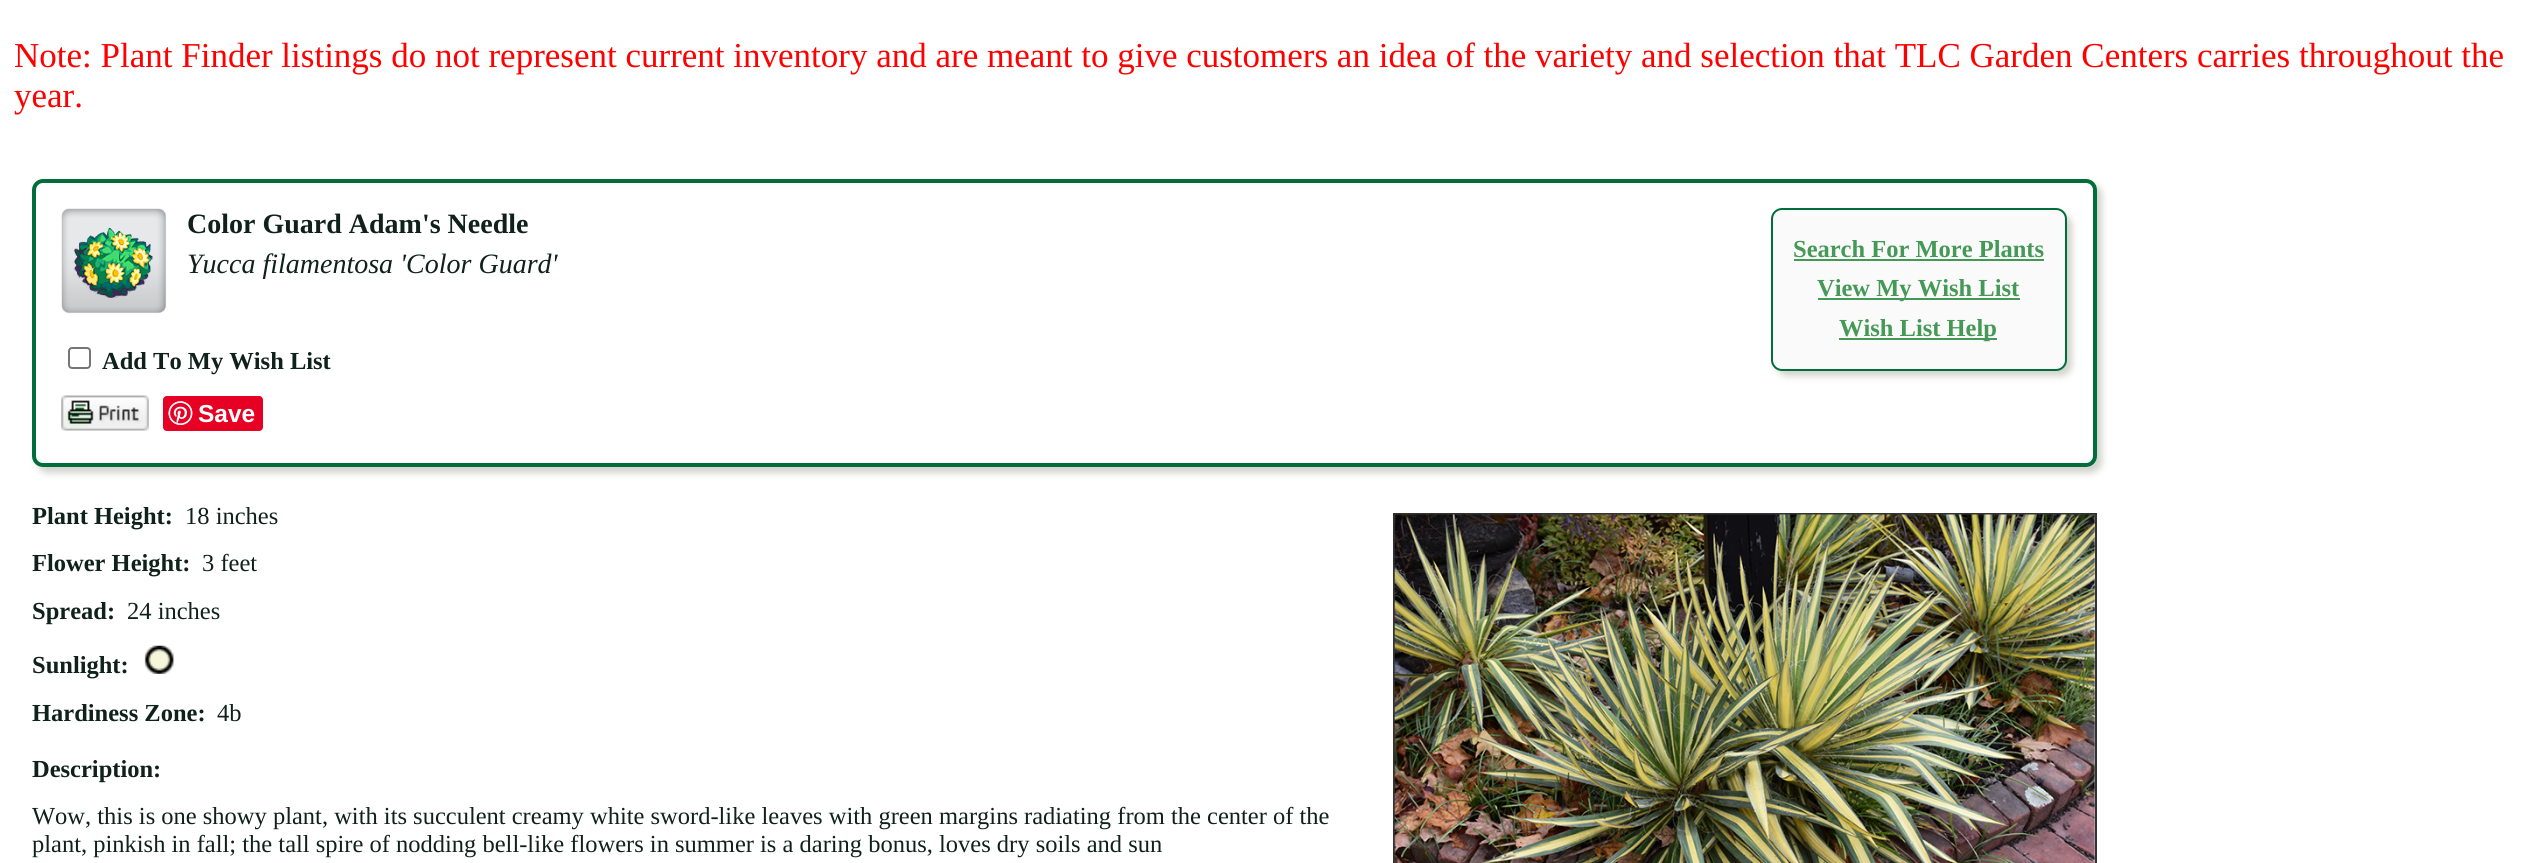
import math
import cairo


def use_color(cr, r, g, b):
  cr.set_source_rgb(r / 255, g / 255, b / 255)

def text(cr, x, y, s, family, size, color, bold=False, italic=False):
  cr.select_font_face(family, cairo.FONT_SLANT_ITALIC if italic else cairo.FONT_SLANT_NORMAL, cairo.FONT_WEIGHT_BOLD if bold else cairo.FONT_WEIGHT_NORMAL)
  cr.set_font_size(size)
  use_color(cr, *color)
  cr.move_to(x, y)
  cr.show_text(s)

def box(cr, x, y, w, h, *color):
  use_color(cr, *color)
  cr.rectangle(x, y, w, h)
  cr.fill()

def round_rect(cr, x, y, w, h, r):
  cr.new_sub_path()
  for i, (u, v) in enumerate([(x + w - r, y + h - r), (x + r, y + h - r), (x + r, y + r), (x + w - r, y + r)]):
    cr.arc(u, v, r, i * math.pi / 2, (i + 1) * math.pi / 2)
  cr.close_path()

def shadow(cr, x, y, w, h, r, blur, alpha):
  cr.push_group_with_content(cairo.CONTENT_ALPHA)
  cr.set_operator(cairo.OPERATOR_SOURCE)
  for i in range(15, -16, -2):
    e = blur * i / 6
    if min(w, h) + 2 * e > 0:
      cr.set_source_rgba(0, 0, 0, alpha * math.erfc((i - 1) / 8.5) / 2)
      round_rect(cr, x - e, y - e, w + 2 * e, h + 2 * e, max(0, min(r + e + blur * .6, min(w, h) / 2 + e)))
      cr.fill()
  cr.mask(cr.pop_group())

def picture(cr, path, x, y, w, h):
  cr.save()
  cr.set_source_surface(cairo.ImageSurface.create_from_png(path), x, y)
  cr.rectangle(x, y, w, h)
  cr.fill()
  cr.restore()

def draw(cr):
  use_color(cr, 255, 255, 255)
  cr.paint()
  cr.save()
  cr.set_fill_rule(cairo.FILL_RULE_EVEN_ODD)
  cr.new_path()
  cr.move_to(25, 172)
  cr.line_to(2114, 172)
  cr.line_to(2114, 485)
  cr.line_to(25, 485)
  cr.close_path()
  cr.move_to(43, 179)
  cr.line_to(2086, 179)
  cr.curve_to(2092, 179, 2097, 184, 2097, 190)
  cr.line_to(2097, 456)
  cr.curve_to(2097, 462, 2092, 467, 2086, 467)
  cr.line_to(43, 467)
  cr.curve_to(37, 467, 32, 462, 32, 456)
  cr.line_to(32, 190)
  cr.curve_to(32, 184, 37, 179, 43, 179)
  cr.close_path()
  cr.clip()
  use_color(cr, 210, 210, 205)
  shadow(cr, 37, 184, 2065, 289, 11, 3.5, 1)
  cr.restore()
  round_rect(cr, 34, 181, 2061, 284, 9)
  use_color(cr, 0, 109, 59)
  cr.set_line_width(4)
  cr.stroke()
  picture(cr, "img_01.png", 61, 208, 106, 106)
  use_color(cr, 210, 210, 205)
  shadow(cr, 1776, 214, 296, 162, 11, 3.5, 1)
  use_color(cr, 250, 250, 250)
  round_rect(cr, 1772, 209, 294, 161, 10)
  cr.fill_preserve()
  use_color(cr, 0, 109, 58)
  cr.set_line_width(2)
  cr.stroke()
  box(cr, 1794, 259, 250, 2, 68, 153, 86)
  box(cr, 1818, 298, 202, 2, 68, 153, 86)
  box(cr, 1839, 338, 158, 2, 68, 153, 86)
  round_rect(cr, 69, 348, 21, 20, 3)
  use_color(cr, 118, 118, 118)
  cr.stroke()
  picture(cr, "img_02.png", 61, 395, 88, 36)
  use_color(cr, 230, 0, 35)
  round_rect(cr, 163, 396, 100, 35, 4)
  cr.fill()
  picture(cr, "img_03.png", 168, 401, 25, 24)
  picture(cr, "img_04.png", 144, 645, 30, 29)
  cr.rectangle(1394, 514, 702, 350)
  use_color(cr, 51, 51, 51)
  cr.stroke()
  picture(cr, "img_05.png", 1394, 514, 701, 349)
  text(cr, 14, 67, "Note: Plant Finder listings do not represent current inventory and are meant to give customers an idea of the variety and selection that TLC Garden Centers carries throughout the", "Liberation Serif", 35, (255, 0, 0))
  text(cr, 14, 107, "year.", "Liberation Serif", 35, (255, 0, 0))
  text(cr, 187, 233, "Color Guard Adam's Needle", "Liberation Serif", 28, (15, 33, 26), bold=True)
  text(cr, 187, 273, "Yucca filamentosa 'Color Guard'", "Liberation Serif", 28, (15, 33, 26), italic=True)
  text(cr, 1793, 257, "Search For More Plants", "Liberation Serif", 24.5, (68, 153, 86), bold=True)
  text(cr, 1817, 296, "View My Wish List", "Liberation Serif", 24.5, (68, 153, 86), bold=True)
  text(cr, 1839, 336, "Wish List Help", "Liberation Serif", 24.5, (68, 153, 86), bold=True)
  text(cr, 102, 369, "Add To My Wish List", "Liberation Serif", 24.5, (15, 33, 26), bold=True)
  text(cr, 198, 422, "Save", "Liberation Sans", 24.5, (255, 255, 255), bold=True)
  text(cr, 32, 524, "Plant Height:", "Liberation Serif", 24.5, (15, 33, 26), bold=True)
  text(cr, 185, 524, "18 inches", "Liberation Serif", 24.5, (15, 33, 26))
  text(cr, 32, 571, "Flower Height:", "Liberation Serif", 24.5, (15, 33, 26), bold=True)
  text(cr, 202, 571, "3 feet", "Liberation Serif", 24.5, (15, 33, 26))
  text(cr, 32, 619, "Spread:", "Liberation Serif", 24.5, (15, 33, 26), bold=True)
  text(cr, 127, 619, "24 inches", "Liberation Serif", 24.5, (15, 33, 26))
  text(cr, 32, 673, "Sunlight:", "Liberation Serif", 24.5, (15, 33, 26), bold=True)
  text(cr, 32, 721, "Hardiness Zone:", "Liberation Serif", 24.5, (15, 33, 26), bold=True)
  text(cr, 217, 721, "4b", "Liberation Serif", 24.5, (15, 33, 26))
  text(cr, 32, 777, "Description:", "Liberation Serif", 24.5, (15, 33, 26), bold=True)
  text(cr, 32, 824, "Wow, this is one showy plant, with its succulent creamy white sword-like leaves with green margins radiating from the center of the", "Liberation Serif", 24.5, (15, 33, 26))
  text(cr, 32, 852, "plant, pinkish in fall; the tall spire of nodding bell-like flowers in summer is a daring bonus, loves dry soils and sun", "Liberation Serif", 24.5, (15, 33, 26))


surface = cairo.ImageSurface(cairo.FORMAT_RGB24, 2532, 863)
cr = cairo.Context(surface)
options = cairo.FontOptions()
options.set_hint_metrics(cairo.HINT_METRICS_OFF)
options.set_hint_style(cairo.HINT_STYLE_NONE)
cr.set_font_options(options)
cr.set_miter_limit(4)
draw(cr)
surface.write_to_png("out.png")
